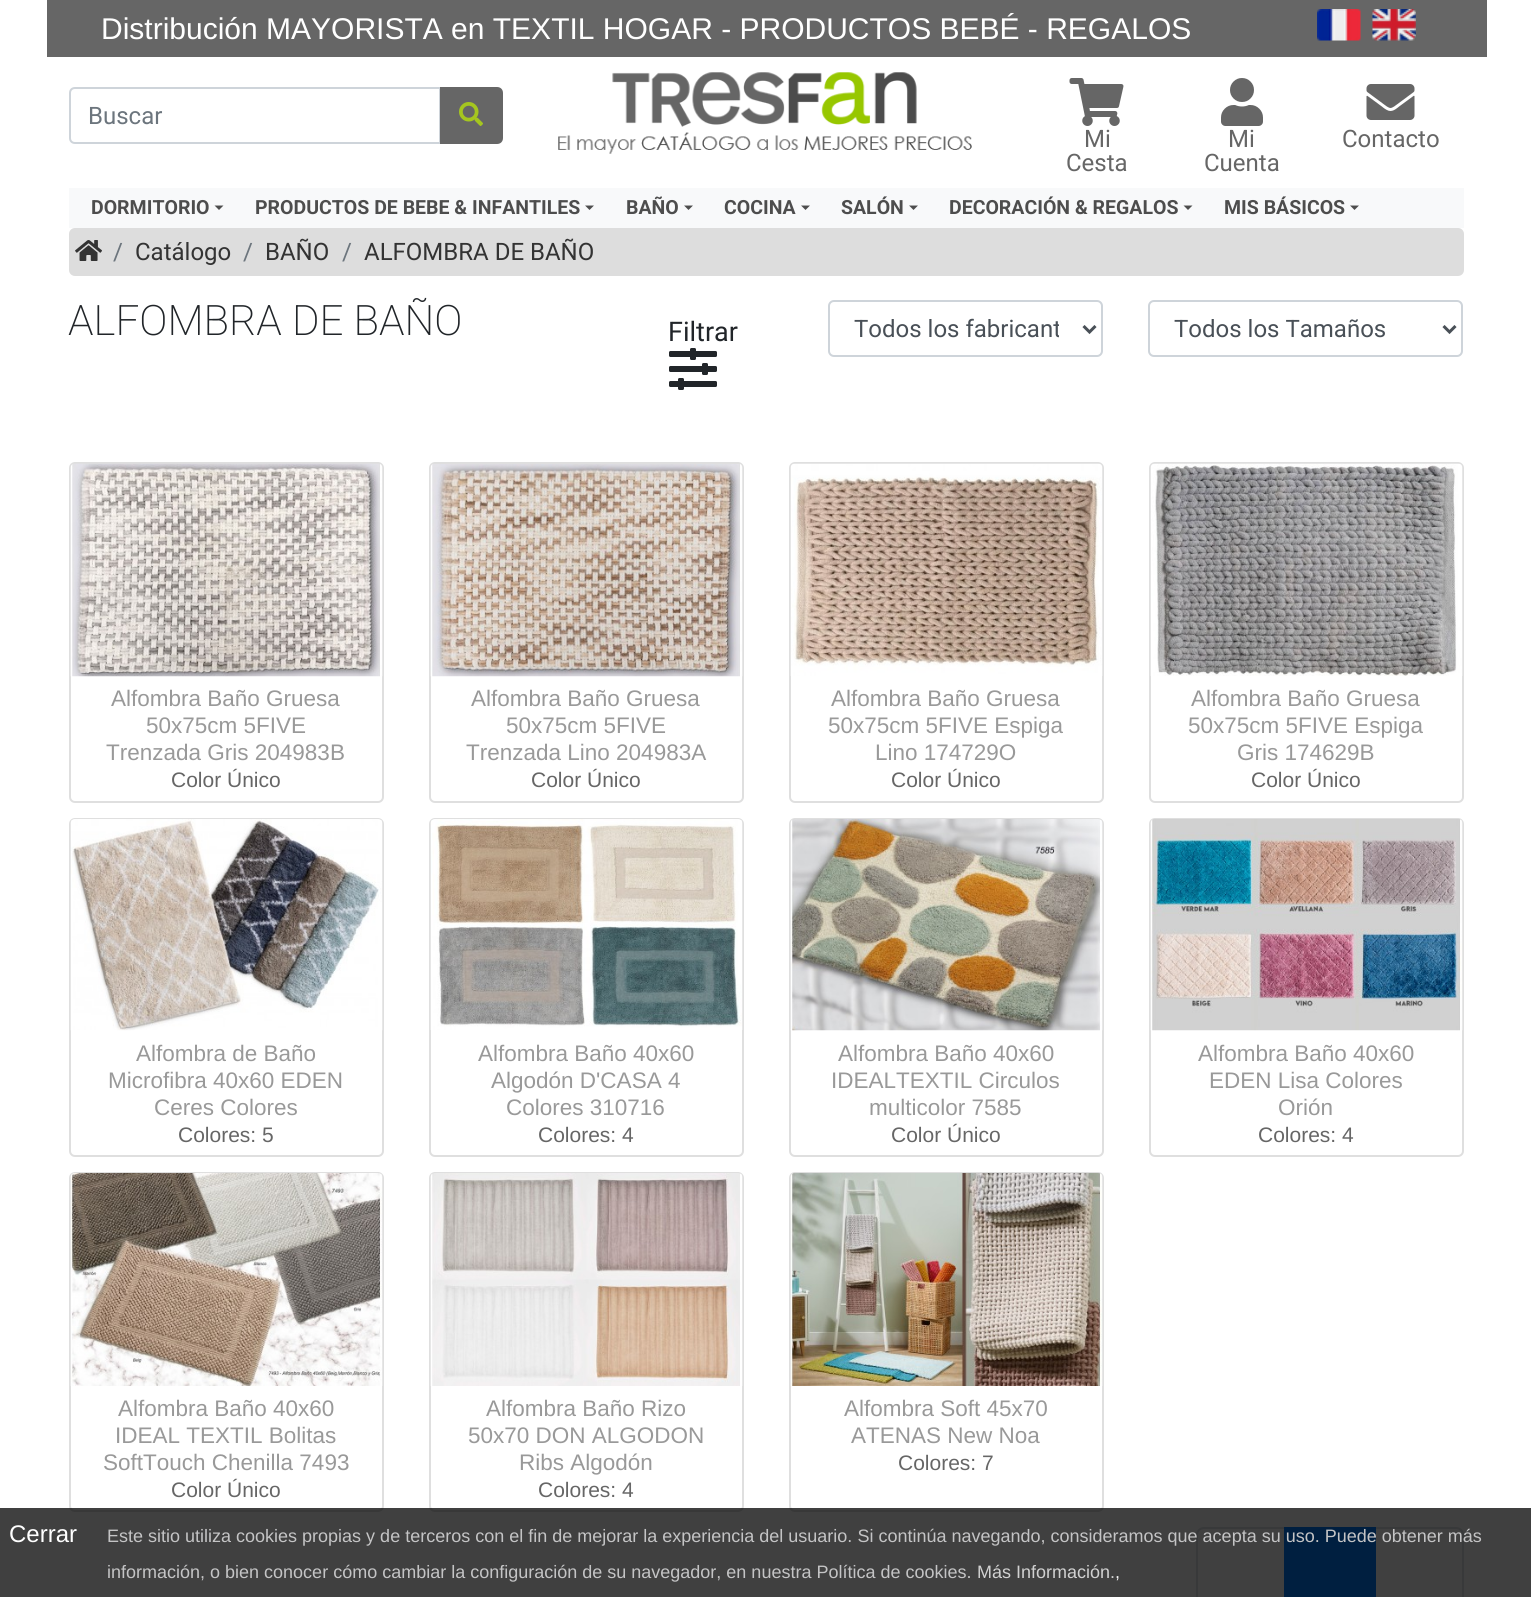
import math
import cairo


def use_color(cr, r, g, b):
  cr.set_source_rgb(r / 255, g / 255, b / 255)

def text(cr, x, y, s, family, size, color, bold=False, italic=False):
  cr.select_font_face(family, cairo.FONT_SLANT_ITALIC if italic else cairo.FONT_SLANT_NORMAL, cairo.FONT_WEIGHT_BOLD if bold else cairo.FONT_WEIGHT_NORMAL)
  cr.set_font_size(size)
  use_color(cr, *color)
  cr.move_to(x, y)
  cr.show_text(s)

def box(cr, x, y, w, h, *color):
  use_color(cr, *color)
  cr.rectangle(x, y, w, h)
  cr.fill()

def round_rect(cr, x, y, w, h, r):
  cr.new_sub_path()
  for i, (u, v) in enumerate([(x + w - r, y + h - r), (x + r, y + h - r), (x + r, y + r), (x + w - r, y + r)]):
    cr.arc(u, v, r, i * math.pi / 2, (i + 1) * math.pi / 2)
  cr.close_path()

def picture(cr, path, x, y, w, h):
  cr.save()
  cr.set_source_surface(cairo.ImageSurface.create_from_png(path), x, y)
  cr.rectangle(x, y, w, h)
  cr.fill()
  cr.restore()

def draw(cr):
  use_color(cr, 255, 255, 255)
  cr.paint()
  box(cr, 47, 0, 1440, 57, 102, 102, 102)
  picture(cr, "img_01.png", 1317, 9, 44, 32)
  picture(cr, "img_02.png", 1372, 9, 44, 32)
  cr.new_path()
  cr.move_to(75, 88)
  cr.line_to(440, 88)
  cr.line_to(440, 143)
  cr.line_to(75, 143)
  cr.curve_to(72, 143, 70, 141, 70, 138)
  cr.line_to(70, 93)
  cr.curve_to(70, 90, 72, 88, 75, 88)
  cr.close_path()
  use_color(cr, 206, 212, 218)
  cr.stroke()
  use_color(cr, 102, 102, 102)
  cr.new_path()
  cr.move_to(441, 88)
  cr.line_to(497, 88)
  cr.curve_to(500, 88, 502, 90, 502, 93)
  cr.line_to(502, 138)
  cr.curve_to(502, 141, 500, 143, 497, 143)
  cr.line_to(441, 143)
  cr.close_path()
  cr.fill_preserve()
  cr.stroke()
  picture(cr, "img_03.png", 459, 102, 24, 24)
  picture(cr, "img_04.png", 558, 72, 414, 82)
  picture(cr, "img_05.png", 1069, 78, 55, 48)
  picture(cr, "img_06.png", 1221, 78, 42, 48)
  picture(cr, "img_07.png", 1366, 84, 49, 36)
  box(cr, 69, 188, 1395, 40, 248, 249, 250)
  use_color(cr, 77, 77, 77)
  cr.new_path()
  cr.move_to(214.5, 205.5)
  cr.line_to(223.5, 205.5)
  cr.line_to(219, 210)
  cr.close_path()
  cr.fill()
  cr.new_path()
  cr.move_to(585, 205.5)
  cr.line_to(594, 205.5)
  cr.line_to(589.5, 210)
  cr.close_path()
  cr.fill()
  cr.new_path()
  cr.move_to(684, 205.5)
  cr.line_to(693, 205.5)
  cr.line_to(688.5, 210)
  cr.close_path()
  cr.fill()
  cr.new_path()
  cr.move_to(801, 205.5)
  cr.line_to(810, 205.5)
  cr.line_to(805.5, 210)
  cr.close_path()
  cr.fill()
  cr.new_path()
  cr.move_to(909, 205.5)
  cr.line_to(918, 205.5)
  cr.line_to(913.5, 210)
  cr.close_path()
  cr.fill()
  cr.new_path()
  cr.move_to(1183.5, 205.5)
  cr.line_to(1192.5, 205.5)
  cr.line_to(1188, 210)
  cr.close_path()
  cr.fill()
  cr.new_path()
  cr.move_to(1350, 205.5)
  cr.line_to(1359, 205.5)
  cr.line_to(1354.5, 210)
  cr.close_path()
  cr.fill()
  use_color(cr, 221, 221, 221)
  round_rect(cr, 69, 228, 1395, 48, 6)
  cr.fill()
  picture(cr, "img_08.png", 75, 240, 27, 21)
  picture(cr, "img_09.png", 669, 348, 48, 42)
  round_rect(cr, 829, 301, 273, 55, 5)
  use_color(cr, 206, 212, 218)
  cr.stroke()
  cr.new_path()
  cr.move_to(1083.5, 326)
  cr.line_to(1089.5, 332)
  cr.line_to(1095.5, 326)
  use_color(cr, 73, 80, 87)
  cr.set_line_width(3)
  cr.stroke()
  round_rect(cr, 1149, 301, 313, 55, 5)
  use_color(cr, 206, 212, 218)
  cr.set_line_width(2)
  cr.stroke()
  cr.new_path()
  cr.move_to(1443.5, 326)
  cr.line_to(1449.5, 332)
  cr.line_to(1455.5, 326)
  use_color(cr, 73, 80, 87)
  cr.set_line_width(3)
  cr.stroke()
  round_rect(cr, 70, 463, 313, 339, 5)
  use_color(cr, 223, 223, 223)
  cr.set_line_width(2)
  cr.stroke()
  picture(cr, "img_10.png", 70, 463, 313, 214)
  round_rect(cr, 430, 463, 313, 339, 5)
  cr.stroke()
  picture(cr, "img_11.png", 430, 464, 313, 213)
  round_rect(cr, 790, 463, 313, 339, 5)
  cr.stroke()
  picture(cr, "img_12.png", 790, 463, 313, 213)
  round_rect(cr, 1150, 463, 313, 339, 5)
  cr.stroke()
  picture(cr, "img_13.png", 1150, 463, 313, 213)
  round_rect(cr, 70, 819, 313, 337, 5)
  cr.stroke()
  picture(cr, "img_14.png", 70, 819, 313, 212)
  round_rect(cr, 430, 819, 313, 337, 5)
  cr.stroke()
  picture(cr, "img_15.png", 430, 819, 313, 211)
  round_rect(cr, 790, 819, 313, 337, 5)
  cr.stroke()
  picture(cr, "img_16.png", 790, 819, 313, 212)
  round_rect(cr, 1150, 819, 313, 337, 5)
  cr.stroke()
  picture(cr, "img_17.png", 1150, 819, 313, 212)
  round_rect(cr, 70, 1173, 313, 338, 5)
  cr.stroke()
  picture(cr, "img_18.png", 70, 1173, 313, 213)
  round_rect(cr, 430, 1173, 313, 338, 5)
  cr.stroke()
  picture(cr, "img_19.png", 430, 1173, 313, 213)
  round_rect(cr, 790, 1173, 313, 338, 5)
  cr.stroke()
  picture(cr, "img_20.png", 790, 1173, 313, 213)
  cr.new_path()
  cr.move_to(1204, 1528)
  cr.line_to(1285, 1528)
  cr.line_to(1285, 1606)
  cr.line_to(1204, 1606)
  cr.curve_to(1200, 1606, 1197, 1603, 1197, 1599)
  cr.line_to(1197, 1535)
  cr.curve_to(1197, 1531, 1200, 1528, 1204, 1528)
  cr.close_path()
  use_color(cr, 222, 226, 230)
  cr.stroke()
  cr.new_path()
  cr.move_to(1375, 1528)
  cr.line_to(1456, 1528)
  cr.curve_to(1460, 1528, 1463, 1531, 1463, 1535)
  cr.line_to(1463, 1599)
  cr.curve_to(1463, 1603, 1460, 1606, 1456, 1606)
  cr.line_to(1375, 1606)
  cr.close_path()
  cr.stroke()
  box(cr, 1284, 1527, 92, 70, 0, 123, 255)
  cr.set_source_rgba(0, 0, 0, 0.75)
  cr.rectangle(0, 1508, 1531, 89)
  cr.fill()
  text(cr, 101, 39, "Distribución MAYORISTA en TEXTIL HOGAR - PRODUCTOS BEBÉ - REGALOS", "Liberation Sans", 30, (255, 255, 255))
  text(cr, 88, 124, "Buscar", "Roboto", 24, (108, 117, 125))
  text(cr, 1084, 147, "Mi", "Roboto", 24, (102, 102, 102))
  text(cr, 1066, 171, "Cesta", "Roboto", 24, (102, 102, 102))
  text(cr, 1228, 147, "Mi", "Roboto", 24, (102, 102, 102))
  text(cr, 1204, 171, "Cuenta", "Roboto", 24, (102, 102, 102))
  text(cr, 1342, 147, "Contacto", "Roboto", 24, (102, 102, 102))
  text(cr, 91, 214, "DORMITORIO", "Roboto", 19.5, (77, 77, 77), bold=True)
  text(cr, 255, 214, "PRODUCTOS DE BEBE & INFANTILES", "Roboto", 19.5, (77, 77, 77), bold=True)
  text(cr, 626, 214, "BAÑO", "Roboto", 19.5, (77, 77, 77), bold=True)
  text(cr, 724, 214, "COCINA", "Roboto", 19.5, (77, 77, 77), bold=True)
  text(cr, 841, 214, "SALÓN", "Roboto", 19.5, (77, 77, 77), bold=True)
  text(cr, 949, 214, "DECORACIÓN & REGALOS", "Roboto", 19.5, (77, 77, 77), bold=True)
  text(cr, 1224, 214, "MIS BÁSICOS", "Roboto", 19.5, (77, 77, 77), bold=True)
  text(cr, 113, 260, "/", "Roboto", 24, (108, 117, 125))
  text(cr, 135, 260, "Catálogo", "Roboto", 24, (51, 51, 51))
  text(cr, 243, 260, "/", "Roboto", 24, (108, 117, 125))
  text(cr, 265, 260, "BAÑO", "Roboto", 24, (51, 51, 51))
  text(cr, 342, 260, "/", "Roboto", 24, (108, 117, 125))
  text(cr, 364, 260, "ALFOMBRA DE BAÑO", "Roboto", 24, (51, 51, 51))
  text(cr, 68, 335, "ALFOMBRA DE BAÑO", "Roboto ExtraLight", 42, (33, 37, 41))
  text(cr, 668, 341, "Filtrar", "Roboto", 27, (33, 37, 41))
  cr.save()
  cr.rectangle(854, 314, 205, 31)
  cr.clip()
  text(cr, 854, 337, "Todos los fabricant", "Roboto", 24, (73, 80, 87))
  cr.restore()
  text(cr, 1174, 337, "Todos los Tamaños", "Roboto", 24, (73, 80, 87))
  text(cr, 111, 706, "Alfombra Baño Gruesa", "Liberation Sans", 22.5, (153, 153, 153))
  text(cr, 146, 733, "50x75cm 5FIVE", "Liberation Sans", 22.5, (153, 153, 153))
  text(cr, 106, 760, "Trenzada Gris 204983B", "Liberation Sans", 22.5, (153, 153, 153))
  text(cr, 171, 787, "Color Único", "Liberation Sans", 21, (102, 102, 102))
  text(cr, 471, 706, "Alfombra Baño Gruesa", "Liberation Sans", 22.5, (153, 153, 153))
  text(cr, 506, 733, "50x75cm 5FIVE", "Liberation Sans", 22.5, (153, 153, 153))
  text(cr, 466, 760, "Trenzada Lino 204983A", "Liberation Sans", 22.5, (153, 153, 153))
  text(cr, 531, 787, "Color Único", "Liberation Sans", 21, (102, 102, 102))
  text(cr, 831, 706, "Alfombra Baño Gruesa", "Liberation Sans", 22.5, (153, 153, 153))
  text(cr, 828, 733, "50x75cm 5FIVE Espiga", "Liberation Sans", 22.5, (153, 153, 153))
  text(cr, 875, 760, "Lino 174729O", "Liberation Sans", 22.5, (153, 153, 153))
  text(cr, 891, 787, "Color Único", "Liberation Sans", 21, (102, 102, 102))
  text(cr, 1191, 706, "Alfombra Baño Gruesa", "Liberation Sans", 22.5, (153, 153, 153))
  text(cr, 1188, 733, "50x75cm 5FIVE Espiga", "Liberation Sans", 22.5, (153, 153, 153))
  text(cr, 1237, 760, "Gris 174629B", "Liberation Sans", 22.5, (153, 153, 153))
  text(cr, 1251, 787, "Color Único", "Liberation Sans", 21, (102, 102, 102))
  text(cr, 136, 1061, "Alfombra de Baño", "Liberation Sans", 22.5, (153, 153, 153))
  text(cr, 108, 1088, "Microfibra 40x60 EDEN", "Liberation Sans", 22.5, (153, 153, 153))
  text(cr, 154, 1115, "Ceres Colores", "Liberation Sans", 22.5, (153, 153, 153))
  text(cr, 178, 1142, "Colores: 5", "Liberation Sans", 21, (102, 102, 102))
  text(cr, 478, 1061, "Alfombra Baño 40x60", "Liberation Sans", 22.5, (153, 153, 153))
  text(cr, 491, 1088, "Algodón D'CASA 4", "Liberation Sans", 22.5, (153, 153, 153))
  text(cr, 506, 1115, "Colores 310716", "Liberation Sans", 22.5, (153, 153, 153))
  text(cr, 538, 1142, "Colores: 4", "Liberation Sans", 21, (102, 102, 102))
  text(cr, 838, 1061, "Alfombra Baño 40x60", "Liberation Sans", 22.5, (153, 153, 153))
  text(cr, 831, 1088, "IDEALTEXTIL Circulos", "Liberation Sans", 22.5, (153, 153, 153))
  text(cr, 869, 1115, "multicolor 7585", "Liberation Sans", 22.5, (153, 153, 153))
  text(cr, 891, 1142, "Color Único", "Liberation Sans", 21, (102, 102, 102))
  text(cr, 1198, 1061, "Alfombra Baño 40x60", "Liberation Sans", 22.5, (153, 153, 153))
  text(cr, 1209, 1088, "EDEN Lisa Colores", "Liberation Sans", 22.5, (153, 153, 153))
  text(cr, 1278, 1115, "Orión", "Liberation Sans", 22.5, (153, 153, 153))
  text(cr, 1258, 1142, "Colores: 4", "Liberation Sans", 21, (102, 102, 102))
  text(cr, 118, 1416, "Alfombra Baño 40x60", "Liberation Sans", 22.5, (153, 153, 153))
  text(cr, 115, 1443, "IDEAL TEXTIL Bolitas", "Liberation Sans", 22.5, (153, 153, 153))
  text(cr, 103, 1470, "SoftTouch Chenilla 7493", "Liberation Sans", 22.5, (153, 153, 153))
  text(cr, 171, 1497, "Color Único", "Liberation Sans", 21, (102, 102, 102))
  text(cr, 486, 1416, "Alfombra Baño Rizo", "Liberation Sans", 22.5, (153, 153, 153))
  text(cr, 468, 1443, "50x70 DON ALGODON", "Liberation Sans", 22.5, (153, 153, 153))
  text(cr, 519, 1470, "Ribs Algodón", "Liberation Sans", 22.5, (153, 153, 153))
  text(cr, 538, 1497, "Colores: 4", "Liberation Sans", 21, (102, 102, 102))
  text(cr, 844, 1416, "Alfombra Soft 45x70", "Liberation Sans", 22.5, (153, 153, 153))
  text(cr, 851, 1443, "ATENAS New Noa", "Liberation Sans", 22.5, (153, 153, 153))
  text(cr, 898, 1470, "Colores: 7", "Liberation Sans", 21, (102, 102, 102))
  text(cr, 9, 1542, "Cerrar", "Liberation Sans", 24, (255, 255, 255))
  text(cr, 107, 1542, "Este sitio utiliza cookies propias y de terceros con el fin de mejorar la experiencia del usuario. Si continúa navegando, consideramos que acepta su uso. Puede obtener más", "Liberation Sans", 18, (196, 196, 197))
  text(cr, 107, 1578, "información, o bien conocer cómo cambiar la configuración de su navegador, en nuestra Política de cookies.", "Liberation Sans", 18, (196, 196, 197))
  text(cr, 977, 1578, "Más Información.", "Liberation Sans", 18, (209, 209, 209))
  text(cr, 1115, 1578, ",", "Liberation Sans", 18, (245, 245, 245))


surface = cairo.ImageSurface(cairo.FORMAT_RGB24, 1531, 1597)
cr = cairo.Context(surface)
options = cairo.FontOptions()
options.set_hint_metrics(cairo.HINT_METRICS_OFF)
options.set_hint_style(cairo.HINT_STYLE_NONE)
cr.set_font_options(options)
cr.set_miter_limit(4)
draw(cr)
surface.write_to_png("out.png")
